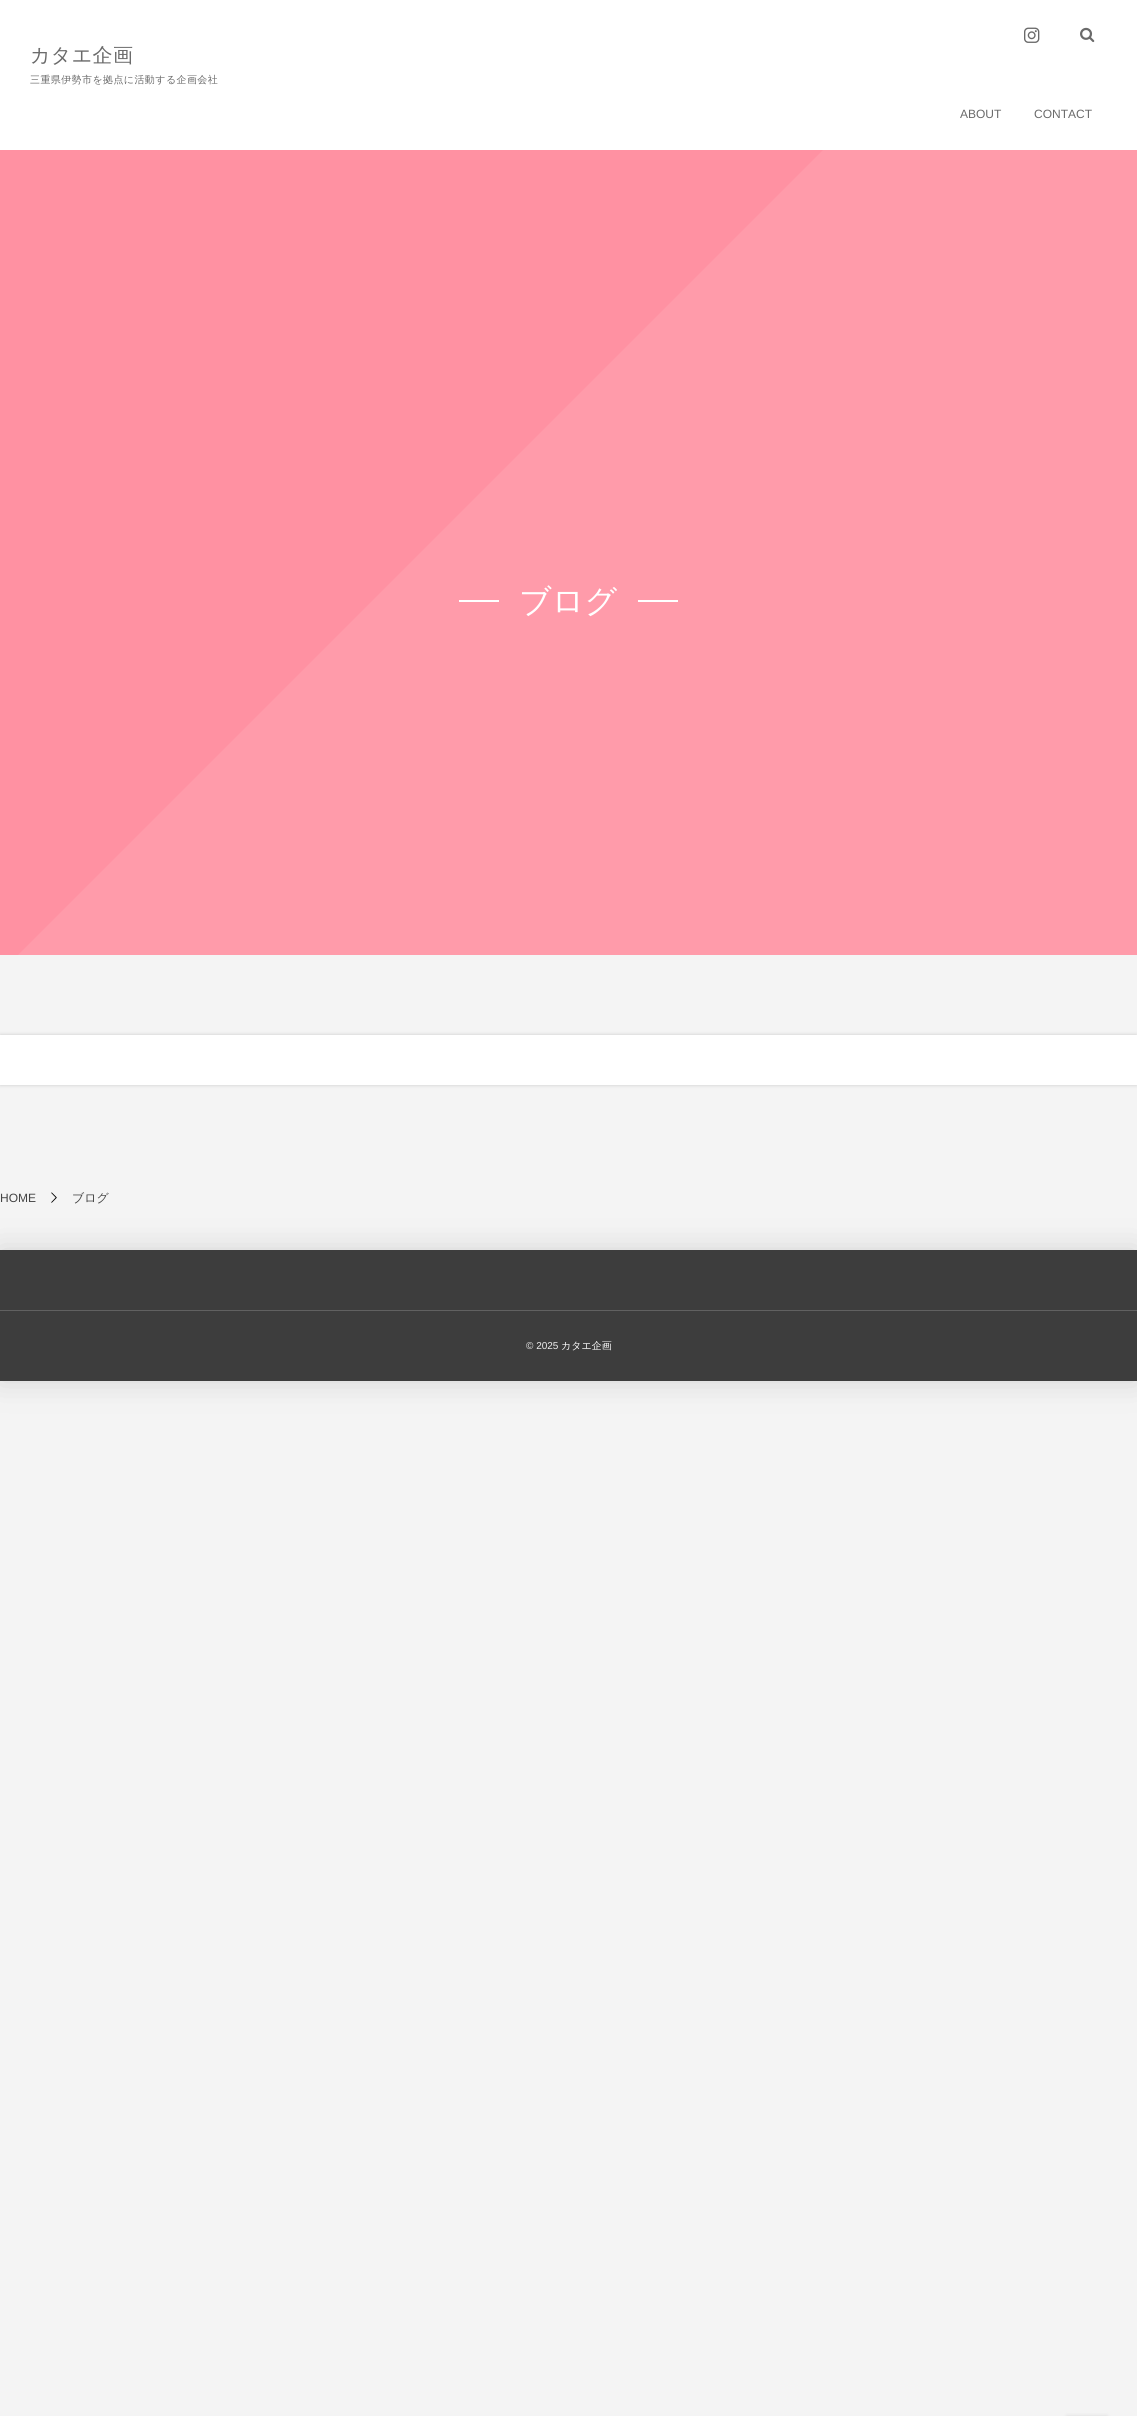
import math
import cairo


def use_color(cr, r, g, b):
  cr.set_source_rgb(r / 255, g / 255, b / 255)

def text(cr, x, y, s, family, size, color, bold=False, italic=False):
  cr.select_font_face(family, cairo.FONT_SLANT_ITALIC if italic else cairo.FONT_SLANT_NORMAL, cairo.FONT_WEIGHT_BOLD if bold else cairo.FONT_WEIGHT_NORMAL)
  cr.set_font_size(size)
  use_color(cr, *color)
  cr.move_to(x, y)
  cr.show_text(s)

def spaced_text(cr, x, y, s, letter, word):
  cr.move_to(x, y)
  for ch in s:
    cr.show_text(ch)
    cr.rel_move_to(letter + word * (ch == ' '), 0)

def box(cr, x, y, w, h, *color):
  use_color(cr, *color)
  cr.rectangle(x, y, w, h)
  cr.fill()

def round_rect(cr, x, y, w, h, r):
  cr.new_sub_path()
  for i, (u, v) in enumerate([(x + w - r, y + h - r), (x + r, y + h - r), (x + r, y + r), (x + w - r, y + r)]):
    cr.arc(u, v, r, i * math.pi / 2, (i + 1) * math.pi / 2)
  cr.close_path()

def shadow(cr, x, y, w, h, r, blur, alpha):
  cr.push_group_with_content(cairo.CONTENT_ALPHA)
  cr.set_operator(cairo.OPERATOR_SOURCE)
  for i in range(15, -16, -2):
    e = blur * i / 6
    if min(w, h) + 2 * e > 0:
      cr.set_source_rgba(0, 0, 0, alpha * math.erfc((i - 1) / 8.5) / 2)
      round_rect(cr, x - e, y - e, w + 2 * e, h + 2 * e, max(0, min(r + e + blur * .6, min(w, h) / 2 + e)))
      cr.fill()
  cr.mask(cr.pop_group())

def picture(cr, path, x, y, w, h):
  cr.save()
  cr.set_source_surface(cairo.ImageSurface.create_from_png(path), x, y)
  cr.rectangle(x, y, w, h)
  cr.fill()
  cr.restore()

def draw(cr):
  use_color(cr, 244, 244, 244)
  cr.paint()
  box(cr, 0, 0, 1137, 150, 255, 255, 255)
  picture(cr, "img_01.png", 1024, 27, 16, 16)
  picture(cr, "img_02.png", 1080, 27, 15, 16)
  box(cr, 0, 150, 823, 805, 255, 145, 162)
  cr.save()
  cr.rectangle(0, 150, 1137, 805)
  cr.clip()
  use_color(cr, 255, 155, 170)
  cr.new_path()
  cr.move_to(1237, -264)
  cr.line_to(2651, 1150)
  cr.line_to(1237, 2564)
  cr.line_to(-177, 1150)
  cr.close_path()
  cr.fill()
  cr.restore()
  box(cr, 459, 600, 40, 2, 255, 255, 255)
  box(cr, 638, 600, 40, 2, 255, 255, 255)
  use_color(cr, 68, 68, 68)
  shadow(cr, 0, 1035, 1137, 50, 0, 2, 0.24)
  box(cr, 0, 1035, 1137, 50, 255, 255, 255)
  picture(cr, "img_03.png", 51, 1192, 6, 11)
  use_color(cr, 68, 68, 68)
  shadow(cr, 0, 1250, 1137, 131, 0, 15, 0.2)
  box(cr, 0, 1250, 1137, 131, 61, 61, 61)
  box(cr, 0, 1310, 1137, 1, 97, 97, 97)
  use_color(cr, 138, 138, 138)
  shadow(cr, 1067, 2416, 40, 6, 0, 2, 0.24)
  cr.select_font_face("WenQuanYi Zen Hei Medium")
  cr.set_font_size(20)
  use_color(cr, 106, 106, 106)
  spaced_text(cr, 30, 62, "カタエ企画", 0.4, 0)
  cr.set_font_size(10)
  spaced_text(cr, 30, 83, "三重県伊勢市を拠点に活動する企画会社", 0.4, 0)
  text(cr, 960, 118, "ABOUT", "Liberation Sans", 12, (106, 106, 106))
  text(cr, 1034, 118, "CONTACT", "Liberation Sans", 12, (106, 106, 106))
  text(cr, 519, 612, "ブログ", "WenQuanYi Zen Hei Medium", 32, (255, 255, 255))
  text(cr, 0, 1202, "HOME", "Liberation Sans", 12, (68, 68, 68))
  text(cr, 72, 1202, "ブログ", "WenQuanYi Zen Hei Medium", 12, (68, 68, 68))
  text(cr, 526, 1349, "© 2025", "Liberation Sans", 10, (239, 239, 239))
  text(cr, 561, 1349, "カタエ企画", "WenQuanYi Zen Hei Medium", 10, (255, 255, 255))


surface = cairo.ImageSurface(cairo.FORMAT_RGB24, 1137, 2416)
cr = cairo.Context(surface)
options = cairo.FontOptions()
options.set_hint_metrics(cairo.HINT_METRICS_OFF)
options.set_hint_style(cairo.HINT_STYLE_NONE)
cr.set_font_options(options)
cr.set_miter_limit(4)
draw(cr)
surface.write_to_png("out.png")
